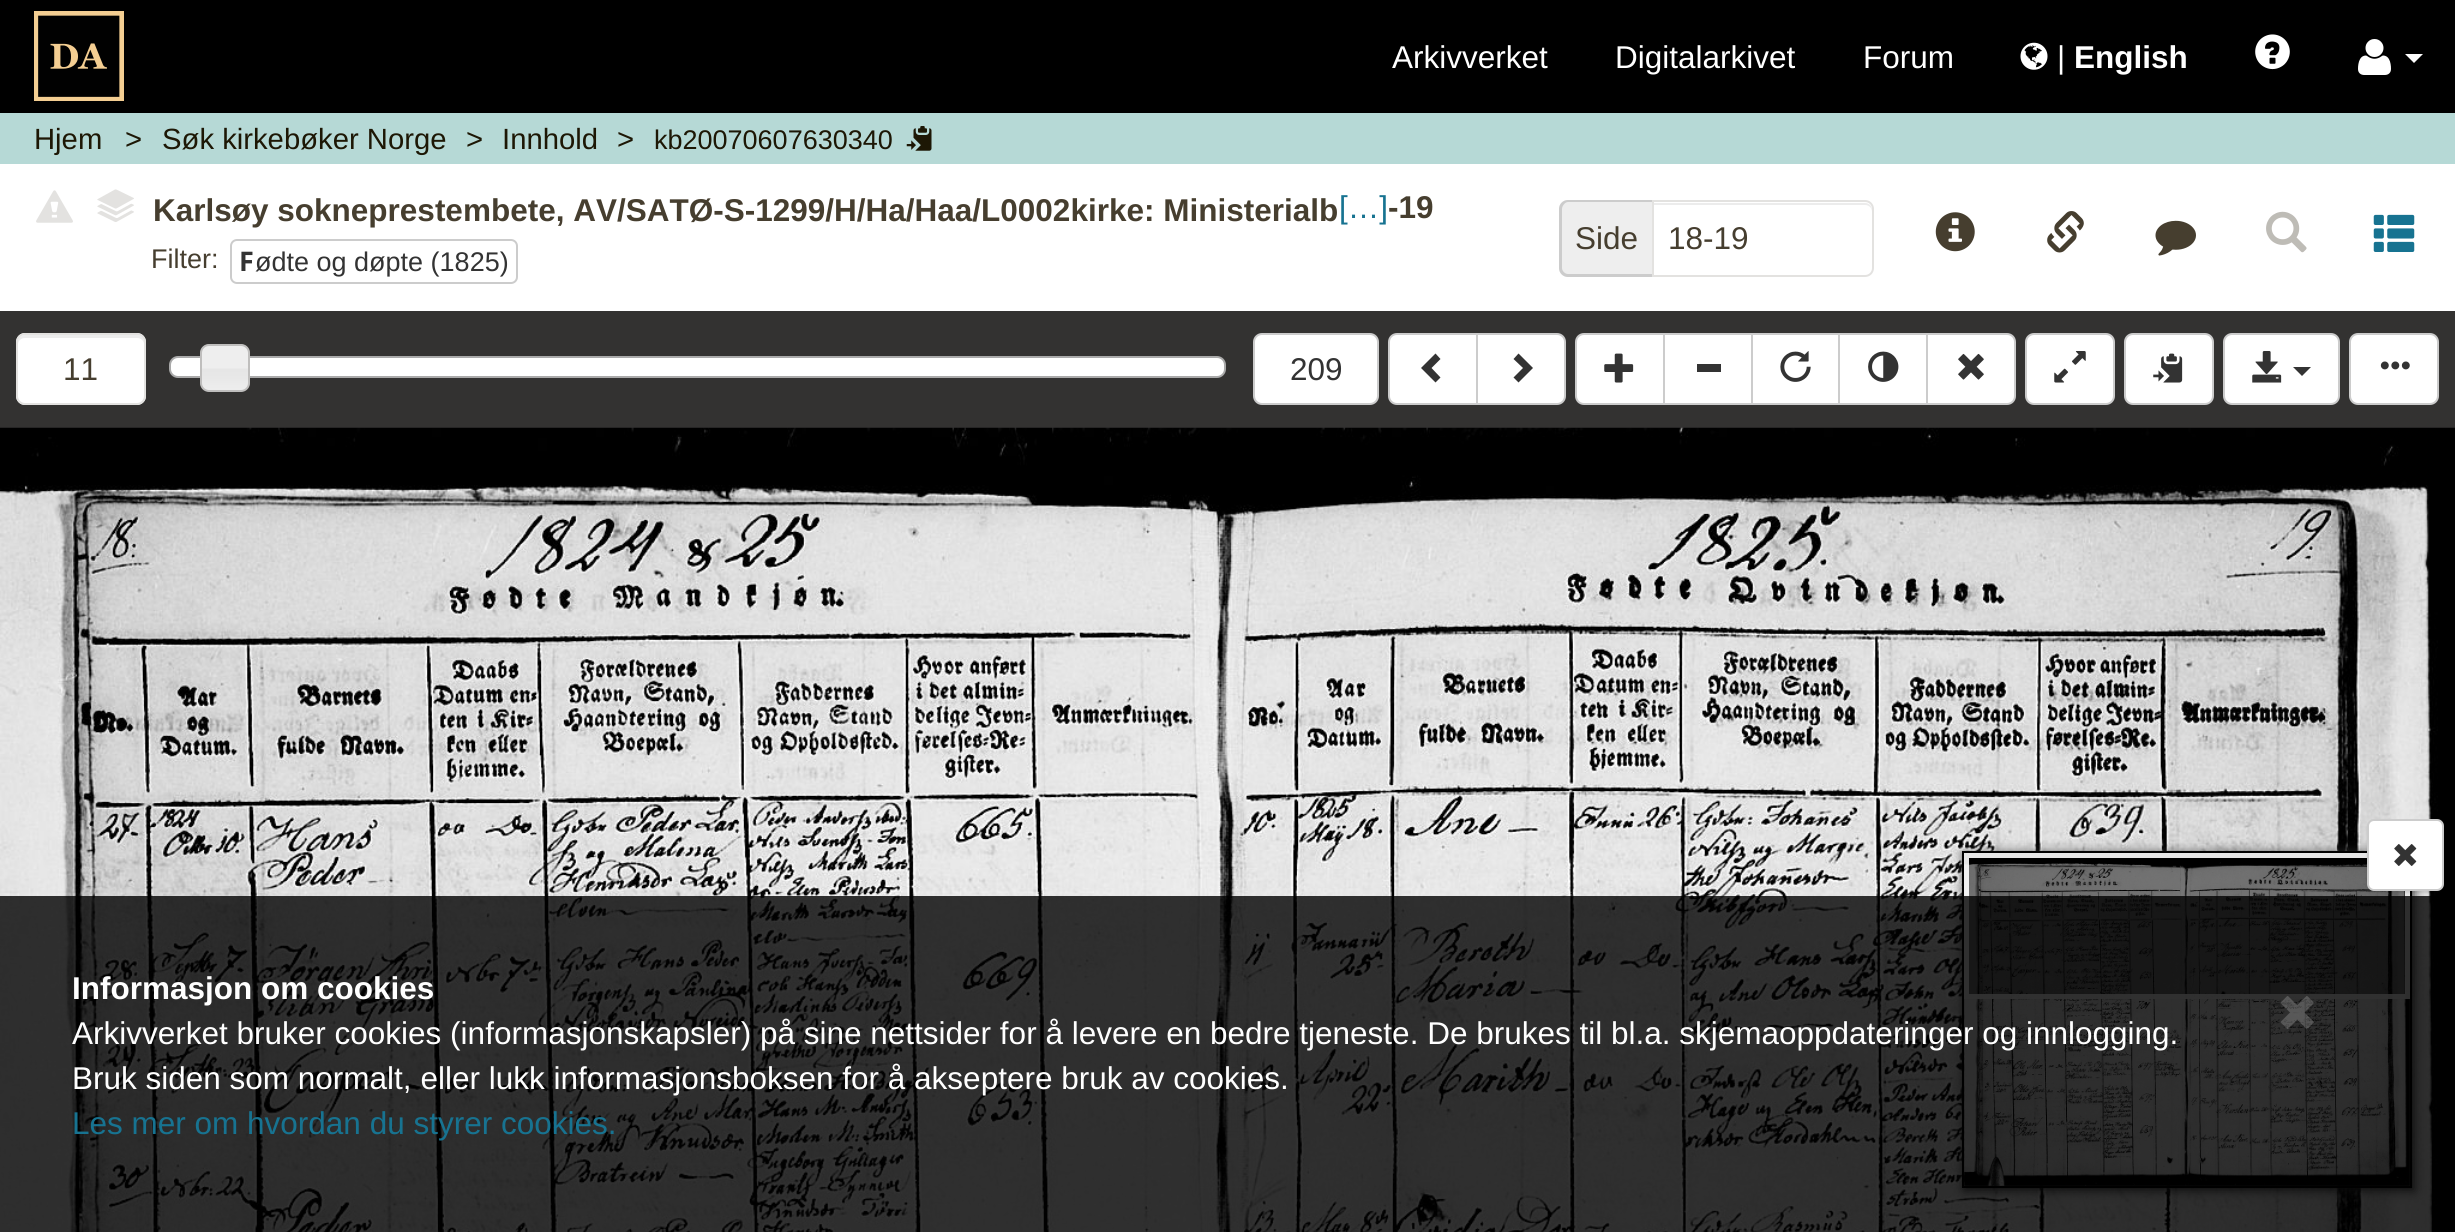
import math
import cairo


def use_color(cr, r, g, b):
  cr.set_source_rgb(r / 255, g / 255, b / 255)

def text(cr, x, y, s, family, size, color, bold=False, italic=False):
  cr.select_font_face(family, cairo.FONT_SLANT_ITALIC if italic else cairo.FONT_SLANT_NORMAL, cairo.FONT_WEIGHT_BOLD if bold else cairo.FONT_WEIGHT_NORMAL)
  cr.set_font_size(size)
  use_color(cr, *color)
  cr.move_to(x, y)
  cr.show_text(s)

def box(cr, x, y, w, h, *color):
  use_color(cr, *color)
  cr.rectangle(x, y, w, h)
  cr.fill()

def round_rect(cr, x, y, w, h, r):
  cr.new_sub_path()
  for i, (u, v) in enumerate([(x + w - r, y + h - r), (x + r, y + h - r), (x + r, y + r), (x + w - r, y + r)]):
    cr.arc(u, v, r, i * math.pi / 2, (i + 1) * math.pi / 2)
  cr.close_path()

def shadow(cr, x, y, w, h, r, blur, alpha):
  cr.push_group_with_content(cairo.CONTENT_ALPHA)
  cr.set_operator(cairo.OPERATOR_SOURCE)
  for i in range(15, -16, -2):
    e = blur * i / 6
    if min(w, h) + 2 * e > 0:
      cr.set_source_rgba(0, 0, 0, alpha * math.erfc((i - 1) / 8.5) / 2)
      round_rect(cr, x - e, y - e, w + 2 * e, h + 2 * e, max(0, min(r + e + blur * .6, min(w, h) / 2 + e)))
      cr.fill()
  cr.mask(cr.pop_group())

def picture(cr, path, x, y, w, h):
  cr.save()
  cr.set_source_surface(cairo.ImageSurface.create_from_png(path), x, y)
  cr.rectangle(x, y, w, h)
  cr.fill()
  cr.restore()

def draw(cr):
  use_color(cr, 182, 217, 214)
  cr.paint()
  box(cr, 0, 0, 2455, 113, 0, 0, 0)
  picture(cr, "img_01.png", 34, 11, 90, 90)
  picture(cr, "img_02.png", 2020, 42, 28, 28)
  picture(cr, "img_03.png", 2255, 34, 35, 36)
  picture(cr, "img_04.png", 2358, 39, 33, 36)
  use_color(cr, 255, 255, 255)
  cr.new_path()
  cr.move_to(2405, 54)
  cr.line_to(2423, 54)
  cr.line_to(2414, 63)
  cr.close_path()
  cr.fill()
  picture(cr, "img_05.png", 906, 126, 26, 25)
  box(cr, 0, 164, 2455, 147, 255, 255, 255)
  picture(cr, "img_06.png", 36, 190, 37, 33)
  picture(cr, "img_11.png", 97, 210, 37, 12)
  picture(cr, "img_10.png", 101, 206, 31, 12)
  picture(cr, "img_09.png", 97, 203, 37, 13)
  picture(cr, "img_08.png", 101, 199, 31, 13)
  picture(cr, "img_07.png", 97, 189, 37, 20)
  round_rect(cr, 231, 240, 286, 43, 6)
  use_color(cr, 204, 204, 204)
  cr.stroke()
  use_color(cr, 238, 238, 238)
  cr.new_path()
  cr.move_to(1568, 200)
  cr.line_to(1652, 200)
  cr.line_to(1652, 277)
  cr.line_to(1568, 277)
  cr.curve_to(1563, 277, 1559, 273, 1559, 268)
  cr.line_to(1559, 209)
  cr.curve_to(1559, 204, 1563, 200, 1568, 200)
  cr.close_path()
  cr.fill()
  use_color(cr, 204, 204, 204)
  cr.set_fill_rule(cairo.FILL_RULE_EVEN_ODD)
  cr.new_path()
  cr.move_to(1568, 200)
  cr.line_to(1652, 200)
  cr.line_to(1652, 277)
  cr.line_to(1568, 277)
  cr.curve_to(1563, 277, 1559, 273, 1559, 268)
  cr.line_to(1559, 209)
  cr.curve_to(1559, 204, 1563, 200, 1568, 200)
  cr.close_path()
  cr.move_to(1568, 202)
  cr.line_to(1652, 202)
  cr.line_to(1652, 274)
  cr.line_to(1568, 274)
  cr.curve_to(1565, 274, 1562, 271, 1562, 268)
  cr.line_to(1562, 209)
  cr.curve_to(1562, 206, 1565, 202, 1568, 202)
  cr.close_path()
  cr.fill()
  use_color(cr, 236, 236, 236)
  cr.set_fill_rule(cairo.FILL_RULE_WINDING)
  cr.new_path()
  cr.move_to(1654, 205)
  cr.line_to(1865, 205)
  cr.curve_to(1869, 205, 1872, 208, 1872, 212)
  cr.line_to(1872, 210)
  cr.curve_to(1872, 206, 1869, 203, 1865, 203)
  cr.line_to(1654, 203)
  cr.close_path()
  cr.fill()
  cr.new_path()
  cr.move_to(1653, 201)
  cr.line_to(1865, 201)
  cr.curve_to(1869.5, 201, 1873, 204.5, 1873, 209)
  cr.line_to(1873, 268)
  cr.curve_to(1873, 272.5, 1869.5, 276, 1865, 276)
  cr.line_to(1653, 276)
  cr.close_path()
  use_color(cr, 227, 226, 224)
  cr.stroke()
  picture(cr, "img_12.png", 1935, 212, 40, 40)
  picture(cr, "img_13.png", 2047, 211, 37, 42)
  picture(cr, "img_14.png", 2155, 220, 41, 36)
  picture(cr, "img_15.png", 2266, 211, 41, 42)
  picture(cr, "img_16.png", 2373, 214, 42, 38)
  box(cr, 0, 311, 2455, 117, 51, 50, 49)
  use_color(cr, 255, 255, 255)
  round_rect(cr, 16, 333, 130, 72, 9)
  cr.fill()
  use_color(cr, 236, 236, 236)
  cr.new_path()
  cr.move_to(25, 338)
  cr.line_to(137, 338)
  cr.curve_to(141, 338, 144, 341, 144, 344)
  cr.line_to(144, 342)
  cr.curve_to(144, 338, 141, 335, 137, 335)
  cr.line_to(25, 335)
  cr.curve_to(21, 335, 18, 338, 18, 342)
  cr.line_to(18, 344)
  cr.curve_to(18, 341, 21, 338, 25, 338)
  cr.close_path()
  cr.fill()
  round_rect(cr, 17, 334, 128, 70, 8)
  use_color(cr, 227, 226, 224)
  cr.stroke()
  use_color(cr, 255, 255, 255)
  round_rect(cr, 170, 357, 1055, 20, 8)
  cr.fill_preserve()
  use_color(cr, 170, 170, 170)
  cr.stroke()
  picture(cr, "img_17.png", 200, 344, 50, 48)
  round_rect(cr, 201, 345, 48, 46, 8)
  use_color(cr, 191, 190, 189)
  cr.stroke()
  use_color(cr, 255, 255, 255)
  round_rect(cr, 1254, 334, 124, 70, 8)
  cr.fill_preserve()
  use_color(cr, 204, 204, 204)
  cr.stroke()
  use_color(cr, 255, 255, 255)
  cr.new_path()
  cr.move_to(1397, 334)
  cr.line_to(1477, 334)
  cr.line_to(1477, 404)
  cr.line_to(1397, 404)
  cr.curve_to(1392.5, 404, 1389, 400.5, 1389, 396)
  cr.line_to(1389, 342)
  cr.curve_to(1389, 337.5, 1392.5, 334, 1397, 334)
  cr.close_path()
  cr.fill_preserve()
  use_color(cr, 204, 204, 204)
  cr.stroke()
  use_color(cr, 51, 51, 51)
  cr.new_path()
  cr.move_to(1440.5, 359)
  cr.line_to(1431.5, 368)
  cr.line_to(1440.5, 377.5)
  cr.line_to(1435.5, 382.5)
  cr.line_to(1421, 368)
  cr.line_to(1435.5, 353.5)
  cr.close_path()
  cr.fill()
  use_color(cr, 255, 255, 255)
  cr.new_path()
  cr.move_to(1477, 334)
  cr.line_to(1557, 334)
  cr.curve_to(1561.5, 334, 1565, 337.5, 1565, 342)
  cr.line_to(1565, 396)
  cr.curve_to(1565, 400.5, 1561.5, 404, 1557, 404)
  cr.line_to(1477, 404)
  cr.close_path()
  cr.fill_preserve()
  use_color(cr, 204, 204, 204)
  cr.stroke()
  use_color(cr, 51, 51, 51)
  cr.new_path()
  cr.move_to(1533, 368)
  cr.line_to(1518.5, 382.5)
  cr.line_to(1513.5, 377.5)
  cr.line_to(1523, 368)
  cr.line_to(1513.5, 359)
  cr.line_to(1518.5, 353.5)
  cr.close_path()
  cr.fill()
  use_color(cr, 255, 255, 255)
  cr.new_path()
  cr.move_to(1584, 334)
  cr.line_to(1664, 334)
  cr.line_to(1664, 404)
  cr.line_to(1584, 404)
  cr.curve_to(1579.5, 404, 1576, 400.5, 1576, 396)
  cr.line_to(1576, 342)
  cr.curve_to(1576, 337.5, 1579.5, 334, 1584, 334)
  cr.close_path()
  cr.fill_preserve()
  use_color(cr, 204, 204, 204)
  cr.stroke()
  picture(cr, "img_18.png", 1604, 353, 30, 30)
  use_color(cr, 255, 255, 255)
  cr.rectangle(1664, 334, 88, 70)
  cr.fill_preserve()
  use_color(cr, 204, 204, 204)
  cr.stroke()
  box(cr, 1697, 364, 24, 8, 51, 51, 51)
  box(cr, 1753, 335, 85, 68, 255, 255, 255)
  cr.rectangle(1752, 334, 88, 70)
  use_color(cr, 204, 204, 204)
  cr.stroke()
  picture(cr, "img_19.png", 1780, 351, 31, 31)
  use_color(cr, 255, 255, 255)
  cr.rectangle(1839, 334, 88, 70)
  cr.fill_preserve()
  use_color(cr, 204, 204, 204)
  cr.stroke()
  picture(cr, "img_20.png", 1868, 351, 31, 31)
  use_color(cr, 255, 255, 255)
  cr.new_path()
  cr.move_to(1927, 334)
  cr.line_to(2007, 334)
  cr.curve_to(2011.5, 334, 2015, 337.5, 2015, 342)
  cr.line_to(2015, 396)
  cr.curve_to(2015, 400.5, 2011.5, 404, 2007, 404)
  cr.line_to(1927, 404)
  cr.close_path()
  cr.fill_preserve()
  use_color(cr, 204, 204, 204)
  cr.stroke()
  picture(cr, "img_21.png", 1958, 353, 26, 27)
  use_color(cr, 255, 255, 255)
  round_rect(cr, 2026, 334, 88, 70, 8)
  cr.fill_preserve()
  use_color(cr, 204, 204, 204)
  cr.stroke()
  picture(cr, "img_22.png", 2054, 351, 32, 32)
  use_color(cr, 255, 255, 255)
  round_rect(cr, 2125, 334, 88, 70, 8)
  cr.fill_preserve()
  use_color(cr, 204, 204, 204)
  cr.stroke()
  picture(cr, "img_23.png", 2153, 353, 30, 30)
  use_color(cr, 255, 255, 255)
  round_rect(cr, 2224, 334, 115, 70, 8)
  cr.fill_preserve()
  use_color(cr, 204, 204, 204)
  cr.stroke()
  picture(cr, "img_24.png", 2252, 351, 30, 32)
  use_color(cr, 51, 51, 51)
  cr.new_path()
  cr.move_to(2293, 367)
  cr.line_to(2311, 367)
  cr.line_to(2302, 376)
  cr.close_path()
  cr.fill()
  use_color(cr, 255, 255, 255)
  round_rect(cr, 2350, 334, 88, 70, 8)
  cr.fill_preserve()
  use_color(cr, 204, 204, 204)
  cr.stroke()
  picture(cr, "img_25.png", 2380, 361, 30, 9)
  picture(cr, "img_26.png", 0, 427, 2455, 805)
  use_color(cr, 50, 50, 50)
  shadow(cr, 1964, 853, 450, 337, 0, 5.5, 1)
  cr.rectangle(1963, 852, 448, 335)
  use_color(cr, 0, 0, 0)
  cr.stroke()
  picture(cr, "img_28.png", 1964, 852, 446, 334)
  cr.set_source_rgba(0, 0, 0, 0.5)
  cr.rectangle(1964, 853, 446, 146)
  cr.fill()
  cr.rectangle(1966.5, 855.5, 441, 141)
  cr.set_source_rgba(1, 1, 1, 0.9)
  cr.set_line_width(5)
  cr.stroke()
  use_color(cr, 0, 0, 0)
  shadow(cr, 2367, 821, 77, 72, 7, 1, 0.1)
  use_color(cr, 255, 255, 255)
  round_rect(cr, 2368, 820, 75, 70, 6)
  cr.fill_preserve()
  use_color(cr, 204, 204, 204)
  cr.set_line_width(2)
  cr.stroke()
  picture(cr, "img_27.png", 2394, 844, 23, 22)
  cr.set_source_rgba(0, 0, 0, 0.8)
  cr.rectangle(0, 896, 2438, 336)
  cr.fill()
  picture(cr, "img_29.png", 2280, 996, 34, 33)
  text(cr, 1392, 68, "Arkivverket", "Liberation Sans", 31.5, (255, 255, 255))
  text(cr, 1615, 68, "Digitalarkivet", "Liberation Sans", 31.5, (255, 255, 255))
  text(cr, 1863, 68, "Forum", "Liberation Sans", 31.5, (255, 255, 255))
  text(cr, 2057, 68, "|", "Liberation Sans", 31.5, (255, 255, 255))
  text(cr, 2074, 68, "English", "Liberation Sans", 31.5, (255, 255, 255), bold=True)
  text(cr, 34, 149, "Hjem", "Liberation Sans", 29.25, (29, 23, 5))
  text(cr, 125, 149, ">", "Liberation Sans", 29.25, (29, 23, 5))
  text(cr, 162, 149, "Søk kirkebøker Norge", "Liberation Sans", 29.25, (29, 23, 5))
  text(cr, 466, 149, ">", "Liberation Sans", 29.25, (29, 23, 5))
  text(cr, 502, 149, "Innhold", "Liberation Sans", 29.25, (29, 23, 5))
  text(cr, 617, 149, ">", "Liberation Sans", 29.25, (29, 23, 5))
  text(cr, 654, 149, "kb20070607630340", "Liberation Sans", 27, (29, 23, 5))
  text(cr, 1339, 218, "[…]", "Liberation Sans", 31.5, (23, 115, 145))
  text(cr, 153, 221, "Karlsøy sokneprestembete, AV/SATØ-S-1299/H/Ha/Haa/L0002kirke: Ministerialb", "Liberation Sans", 31.5, (70, 62, 47), bold=True)
  text(cr, 1388, 218, "-19", "Liberation Sans", 31.5, (70, 62, 47), bold=True)
  text(cr, 151, 268, "Filter:", "Liberation Sans", 27, (70, 62, 47))
  text(cr, 239, 271, "F", "Noto Sans", 27, (51, 51, 51), bold=True)
  text(cr, 255, 271, "ødte og døpte (1825)", "Liberation Sans", 27, (51, 51, 51))
  text(cr, 1575, 249, "Side", "Liberation Sans", 31.5, (70, 62, 47))
  text(cr, 1668, 249, "18-19", "Liberation Sans", 31.5, (70, 62, 47))
  text(cr, 63, 380, "11", "Liberation Sans", 31.5, (70, 62, 47))
  text(cr, 1290, 380, "209", "Liberation Sans", 31.5, (51, 51, 51))
  text(cr, 72, 999, "Informasjon om cookies", "Liberation Sans", 31.5, (255, 255, 255), bold=True)
  text(cr, 72, 1044, "Arkivverket bruker cookies (informasjonskapsler) på sine nettsider for å levere en bedre tjeneste. De brukes til bl.a. skjemaoppdateringer og innlogging.", "Liberation Sans", 31.5, (255, 255, 255))
  text(cr, 72, 1089, "Bruk siden som normalt, eller lukk informasjonsboksen for å akseptere bruk av cookies.", "Liberation Sans", 31.5, (255, 255, 255))
  text(cr, 72, 1134, "Les mer om hvordan du styrer cookies.", "Liberation Sans", 31.5, (23, 115, 145))


surface = cairo.ImageSurface(cairo.FORMAT_RGB24, 2455, 1232)
cr = cairo.Context(surface)
options = cairo.FontOptions()
options.set_hint_metrics(cairo.HINT_METRICS_OFF)
options.set_hint_style(cairo.HINT_STYLE_NONE)
cr.set_font_options(options)
cr.set_miter_limit(4)
draw(cr)
surface.write_to_png("out.png")
